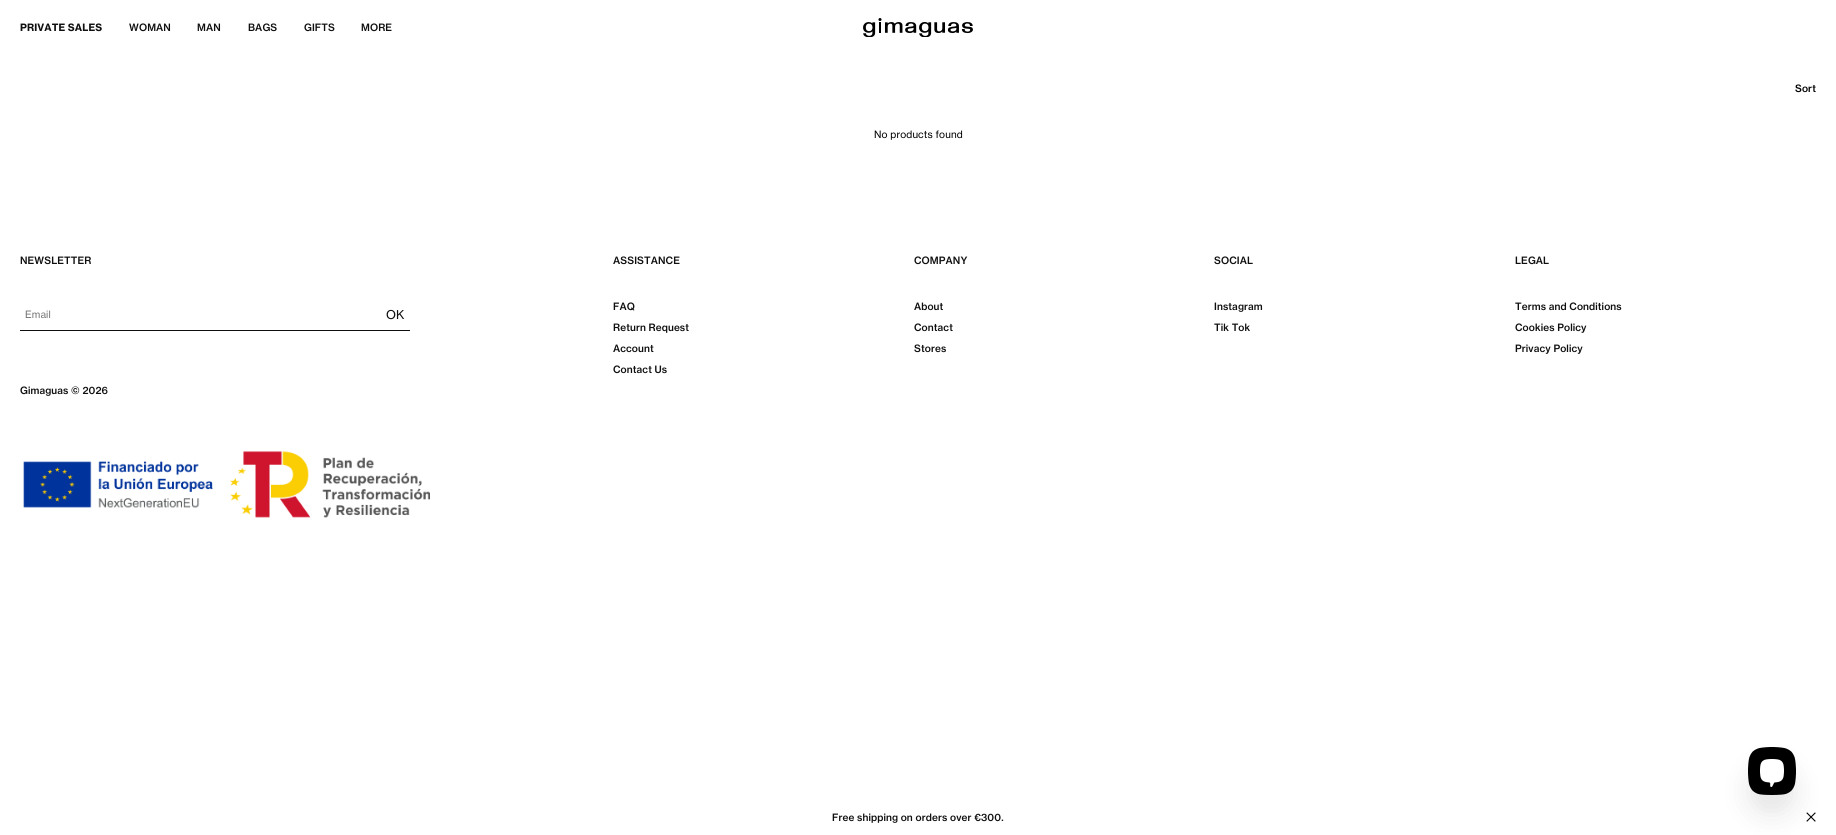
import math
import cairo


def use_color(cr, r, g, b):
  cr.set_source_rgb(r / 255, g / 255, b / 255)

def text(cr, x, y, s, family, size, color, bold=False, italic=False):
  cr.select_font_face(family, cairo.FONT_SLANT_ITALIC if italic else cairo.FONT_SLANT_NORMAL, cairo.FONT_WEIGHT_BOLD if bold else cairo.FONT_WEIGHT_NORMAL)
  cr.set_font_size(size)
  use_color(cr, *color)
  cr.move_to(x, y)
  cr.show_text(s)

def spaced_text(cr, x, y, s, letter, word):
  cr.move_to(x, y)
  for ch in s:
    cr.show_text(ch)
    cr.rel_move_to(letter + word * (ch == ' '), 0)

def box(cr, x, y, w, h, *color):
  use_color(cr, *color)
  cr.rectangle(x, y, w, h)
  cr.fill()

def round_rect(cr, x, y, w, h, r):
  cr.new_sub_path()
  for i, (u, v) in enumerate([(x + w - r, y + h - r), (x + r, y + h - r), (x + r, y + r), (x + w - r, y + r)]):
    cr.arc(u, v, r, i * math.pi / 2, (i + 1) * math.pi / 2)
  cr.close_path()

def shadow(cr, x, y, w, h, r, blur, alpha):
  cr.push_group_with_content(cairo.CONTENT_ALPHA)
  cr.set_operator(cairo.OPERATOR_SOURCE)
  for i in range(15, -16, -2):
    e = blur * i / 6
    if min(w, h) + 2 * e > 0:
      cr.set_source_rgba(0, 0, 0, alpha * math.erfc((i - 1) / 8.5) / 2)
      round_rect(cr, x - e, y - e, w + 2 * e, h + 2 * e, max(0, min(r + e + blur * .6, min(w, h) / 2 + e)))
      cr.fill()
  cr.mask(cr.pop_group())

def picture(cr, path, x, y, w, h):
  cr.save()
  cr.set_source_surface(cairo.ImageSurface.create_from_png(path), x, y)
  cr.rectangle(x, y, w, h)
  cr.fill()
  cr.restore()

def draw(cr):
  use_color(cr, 255, 255, 255)
  cr.paint()
  picture(cr, "img_01.png", 863, 18, 110, 19)
  box(cr, 20, 330, 390, 1, 15, 15, 15)
  picture(cr, "img_02.png", 23, 461, 190, 47)
  picture(cr, "img_03.png", 230, 451, 200, 67)
  picture(cr, "img_04.png", 1806, 812, 10, 10)
  use_color(cr, 18, 18, 23)
  shadow(cr, 1748, 767, 48, 48, 16, 12.5, 0.1)
  picture(cr, "img_05.png", 1748, 747, 48, 48)
  cr.select_font_face("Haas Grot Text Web", cairo.FONT_SLANT_NORMAL, cairo.FONT_WEIGHT_BOLD)
  cr.set_font_size(10)
  use_color(cr, 15, 15, 15)
  spaced_text(cr, 20, 31, "PRIVATE SALES", 0.1, 0)
  cr.select_font_face("Haas Grot Text Web Medium")
  spaced_text(cr, 129, 31, "WOMAN", 0.1, 0)
  spaced_text(cr, 197, 31, "MAN", 0.1, 0)
  spaced_text(cr, 248, 31, "BAGS", 0.1, 0)
  spaced_text(cr, 304, 31, "GIFTS", 0.1, 0)
  spaced_text(cr, 361, 31, "MORE", 0.1, 0)
  use_color(cr, 0, 0, 0)
  spaced_text(cr, 1795, 92, "Sort", 0.1, 0)
  cr.select_font_face("Haas Grot Text Web")
  spaced_text(cr, 874, 138, "No products found", 0.1, 0)
  cr.select_font_face("Haas Grot Text Web Medium")
  use_color(cr, 15, 15, 15)
  spaced_text(cr, 20, 264, "NEWSLETTER", 0.1, 0)
  cr.select_font_face("Haas Grot Text Web")
  use_color(cr, 117, 117, 117)
  spaced_text(cr, 25, 318, "Email", 0.1, 0)
  text(cr, 386, 319, "OK", "Haas Grot Text Web", 12, (15, 15, 15))
  cr.select_font_face("Haas Grot Text Web Medium")
  cr.set_font_size(10)
  spaced_text(cr, 613, 264, "ASSISTANCE", 0.1, 0)
  spaced_text(cr, 613, 310, "FAQ", 0.1, 0)
  spaced_text(cr, 613, 331, "Return Request", 0.1, 0)
  spaced_text(cr, 613, 352, "Account", 0.1, 0)
  spaced_text(cr, 613, 373, "Contact Us", 0.1, 0)
  spaced_text(cr, 914, 264, "COMPANY", 0.1, 0)
  spaced_text(cr, 914, 310, "About", 0.1, 0)
  spaced_text(cr, 914, 331, "Contact", 0.1, 0)
  spaced_text(cr, 914, 352, "Stores", 0.1, 0)
  spaced_text(cr, 1214, 264, "SOCIAL", 0.1, 0)
  spaced_text(cr, 1214, 310, "Instagram", 0.1, 0)
  spaced_text(cr, 1214, 331, "Tik Tok", 0.1, 0)
  spaced_text(cr, 1515, 264, "LEGAL", 0.1, 0)
  spaced_text(cr, 1515, 310, "Terms and Conditions", 0.1, 0)
  spaced_text(cr, 1515, 331, "Cookies Policy", 0.1, 0)
  spaced_text(cr, 1515, 352, "Privacy Policy", 0.1, 0)
  spaced_text(cr, 20, 394, "Gimaguas © 2026", 0.1, 0)
  spaced_text(cr, 832, 821, "Free shipping on orders over €300.", 0.1, 0)


surface = cairo.ImageSurface(cairo.FORMAT_RGB24, 1836, 835)
cr = cairo.Context(surface)
options = cairo.FontOptions()
options.set_hint_metrics(cairo.HINT_METRICS_OFF)
options.set_hint_style(cairo.HINT_STYLE_NONE)
cr.set_font_options(options)
cr.set_miter_limit(4)
draw(cr)
surface.write_to_png("out.png")
